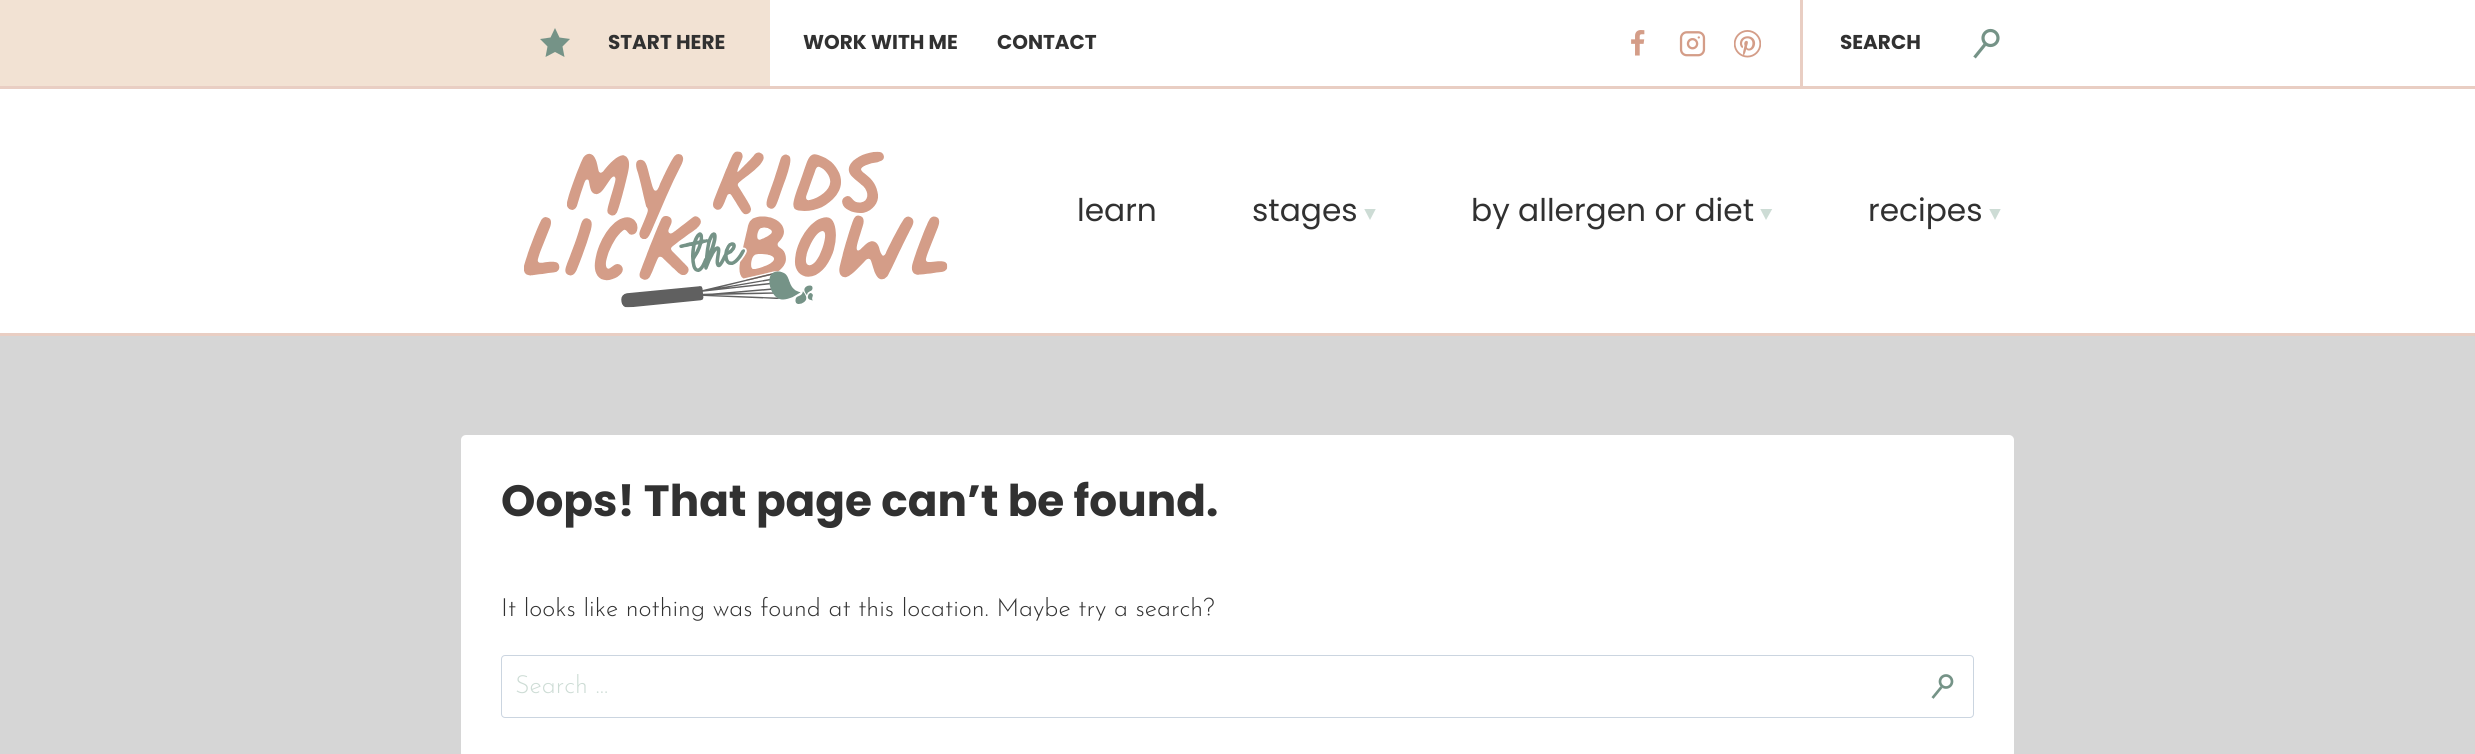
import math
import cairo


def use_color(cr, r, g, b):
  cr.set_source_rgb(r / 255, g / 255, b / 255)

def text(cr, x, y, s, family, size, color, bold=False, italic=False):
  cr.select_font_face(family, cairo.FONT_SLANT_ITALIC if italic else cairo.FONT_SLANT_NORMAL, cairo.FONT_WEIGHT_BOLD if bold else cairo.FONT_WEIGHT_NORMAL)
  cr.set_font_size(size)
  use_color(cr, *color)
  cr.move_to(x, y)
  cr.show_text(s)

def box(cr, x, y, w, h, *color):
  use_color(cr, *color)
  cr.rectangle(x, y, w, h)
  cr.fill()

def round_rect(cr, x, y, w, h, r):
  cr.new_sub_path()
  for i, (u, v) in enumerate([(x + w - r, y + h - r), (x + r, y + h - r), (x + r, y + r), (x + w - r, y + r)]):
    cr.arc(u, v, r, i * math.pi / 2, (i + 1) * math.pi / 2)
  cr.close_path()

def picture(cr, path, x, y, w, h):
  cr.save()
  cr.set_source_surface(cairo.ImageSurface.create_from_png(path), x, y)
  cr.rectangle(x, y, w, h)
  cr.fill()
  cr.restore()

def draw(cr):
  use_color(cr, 214, 214, 214)
  cr.paint()
  box(cr, 0, 0, 2475, 333, 255, 255, 255)
  box(cr, 0, 0, 770, 86, 242, 226, 211)
  box(cr, 0, 86, 2475, 3, 233, 206, 195)
  use_color(cr, 117, 147, 135)
  cr.new_path()
  cr.move_to(555, 28)
  cr.line_to(559.5, 37.5)
  cr.line_to(570, 39)
  cr.line_to(562.5, 46.5)
  cr.line_to(564.5, 57)
  cr.line_to(555, 52)
  cr.line_to(545.5, 57)
  cr.line_to(547.5, 46.5)
  cr.line_to(540, 39)
  cr.line_to(550.5, 37.5)
  cr.close_path()
  cr.fill()
  box(cr, 1800, 0, 3, 86, 233, 206, 195)
  picture(cr, "img_01.png", 1631, 30, 14, 26)
  picture(cr, "img_02.png", 1679, 31, 27, 26)
  picture(cr, "img_03.png", 1734, 30, 27, 28)
  cr.arc(1990.5, 38, 7.5, 0, 2 * math.pi)
  use_color(cr, 117, 147, 135)
  cr.set_line_width(3.2)
  cr.stroke()
  cr.new_path()
  cr.move_to(1985, 44.5)
  cr.line_to(1974.5, 57.5)
  cr.stroke()
  box(cr, 0, 333, 2475, 3, 233, 206, 195)
  picture(cr, "img_04.png", 524, 151, 424, 157)
  cr.save()
  cr.rectangle(1364, 209, 12, 11)
  cr.clip()
  use_color(cr, 205, 220, 213)
  cr.new_path()
  cr.move_to(1370, 220)
  cr.line_to(1364, 208.5)
  cr.line_to(1376, 208.5)
  cr.close_path()
  cr.fill()
  cr.restore()
  cr.save()
  cr.rectangle(1760, 209, 13, 11)
  cr.clip()
  use_color(cr, 205, 220, 213)
  cr.new_path()
  cr.move_to(1766, 220)
  cr.line_to(1760, 208.5)
  cr.line_to(1772.5, 208.5)
  cr.close_path()
  cr.fill()
  cr.restore()
  cr.save()
  cr.rectangle(1989, 209, 12, 11)
  cr.clip()
  use_color(cr, 205, 220, 213)
  cr.new_path()
  cr.move_to(1995, 220)
  cr.line_to(1989, 208.5)
  cr.line_to(2001, 208.5)
  cr.close_path()
  cr.fill()
  cr.restore()
  use_color(cr, 255, 255, 255)
  round_rect(cr, 461, 435, 1553, 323, 5)
  cr.fill()
  round_rect(cr, 501.5, 655.5, 1472, 62, 3.5)
  use_color(cr, 203, 213, 224)
  cr.set_line_width(1)
  cr.stroke()
  cr.arc(1946, 681.5, 6, 0, 2 * math.pi)
  use_color(cr, 117, 147, 135)
  cr.set_line_width(2.7)
  cr.stroke()
  cr.new_path()
  cr.move_to(1941.5, 687)
  cr.line_to(1932.5, 698)
  cr.stroke()
  text(cr, 608, 49, "START HERE", "Poppins", 20, (49, 49, 49), bold=True)
  text(cr, 803, 49, "WORK WITH ME", "Poppins", 20, (49, 49, 49), bold=True)
  text(cr, 997, 49, "CONTACT", "Poppins", 20, (49, 49, 49), bold=True)
  text(cr, 1840, 49, "SEARCH", "Poppins", 20, (49, 49, 49), bold=True)
  text(cr, 1077, 221, "learn", "Poppins", 31.25, (49, 49, 49))
  text(cr, 1252, 221, "stages", "Poppins", 31.25, (49, 49, 49))
  text(cr, 1471, 221, "by allergen or diet", "Poppins", 31.25, (49, 49, 49))
  text(cr, 1868, 221, "recipes", "Poppins", 31.25, (49, 49, 49))
  text(cr, 501, 516, "Oops! That page can’t be found.", "Poppins", 43.75, (49, 49, 49), bold=True)
  text(cr, 501, 616, "It looks like nothing was found at this location. Maybe try a search?", "Josefin Sans Light", 25, (49, 49, 49))
  text(cr, 515, 693, "Search …", "Josefin Sans Light", 25, (205, 220, 213))


surface = cairo.ImageSurface(cairo.FORMAT_RGB24, 2475, 754)
cr = cairo.Context(surface)
options = cairo.FontOptions()
options.set_hint_metrics(cairo.HINT_METRICS_OFF)
options.set_hint_style(cairo.HINT_STYLE_NONE)
cr.set_font_options(options)
cr.set_miter_limit(4)
draw(cr)
surface.write_to_png("out.png")
